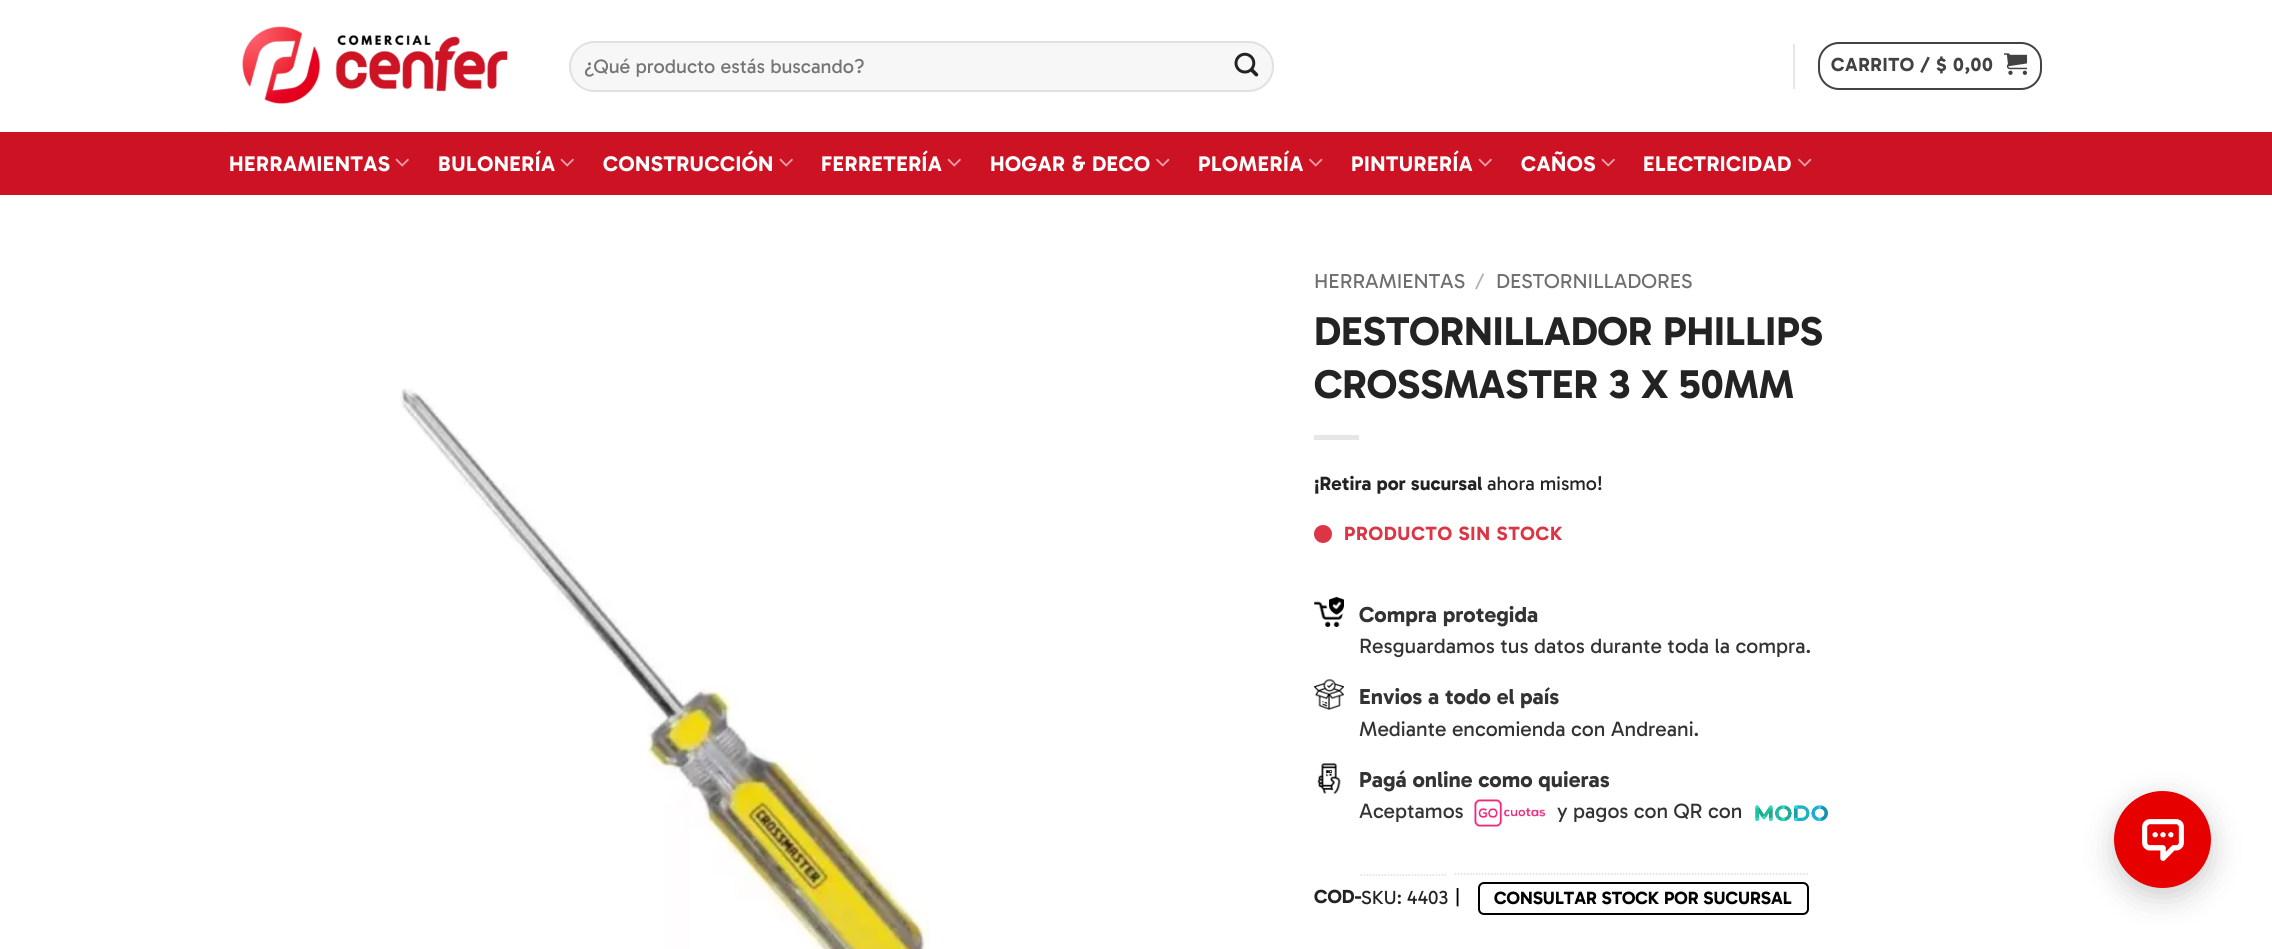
import math
import cairo


def use_color(cr, r, g, b):
  cr.set_source_rgb(r / 255, g / 255, b / 255)

def text(cr, x, y, s, family, size, color, bold=False, italic=False):
  cr.select_font_face(family, cairo.FONT_SLANT_ITALIC if italic else cairo.FONT_SLANT_NORMAL, cairo.FONT_WEIGHT_BOLD if bold else cairo.FONT_WEIGHT_NORMAL)
  cr.set_font_size(size)
  use_color(cr, *color)
  cr.move_to(x, y)
  cr.show_text(s)

def spaced_text(cr, x, y, s, letter, word):
  cr.move_to(x, y)
  for ch in s:
    cr.show_text(ch)
    cr.rel_move_to(letter + word * (ch == ' '), 0)

def box(cr, x, y, w, h, *color):
  use_color(cr, *color)
  cr.rectangle(x, y, w, h)
  cr.fill()

def round_rect(cr, x, y, w, h, r):
  cr.new_sub_path()
  for i, (u, v) in enumerate([(x + w - r, y + h - r), (x + r, y + h - r), (x + r, y + r), (x + w - r, y + r)]):
    cr.arc(u, v, r, i * math.pi / 2, (i + 1) * math.pi / 2)
  cr.close_path()

def shadow(cr, x, y, w, h, r, blur, alpha):
  cr.push_group_with_content(cairo.CONTENT_ALPHA)
  cr.set_operator(cairo.OPERATOR_SOURCE)
  for i in range(15, -16, -2):
    e = blur * i / 6
    if min(w, h) + 2 * e > 0:
      cr.set_source_rgba(0, 0, 0, alpha * math.erfc((i - 1) / 8.5) / 2)
      round_rect(cr, x - e, y - e, w + 2 * e, h + 2 * e, max(0, min(r + e + blur * .6, min(w, h) / 2 + e)))
      cr.fill()
  cr.mask(cr.pop_group())

def picture(cr, path, x, y, w, h):
  cr.save()
  cr.set_source_surface(cairo.ImageSurface.create_from_png(path), x, y)
  cr.rectangle(x, y, w, h)
  cr.fill()
  cr.restore()

def draw(cr):
  use_color(cr, 255, 255, 255)
  cr.paint()
  picture(cr, "img_01.png", 242, 26, 266, 78)
  use_color(cr, 247, 247, 247)
  round_rect(cr, 569, 41, 705, 51, 25.5)
  cr.fill()
  round_rect(cr, 570, 42, 703, 49, 24.5)
  cr.set_source_rgba(0, 0, 0, 0.09)
  cr.stroke()
  picture(cr, "img_02.png", 1234, 52, 25, 25)
  box(cr, 1793, 44, 2, 45, 230, 230, 230)
  round_rect(cr, 1819, 43, 222, 46, 20)
  use_color(cr, 66, 66, 66)
  cr.stroke()
  picture(cr, "img_03.png", 2004, 53, 24, 22)
  box(cr, 0, 132, 2272, 63, 205, 19, 35)
  box(cr, 230, 132, 1815, 2, 188, 21, 35)
  picture(cr, "img_04.png", 395, 158, 14, 9)
  picture(cr, "img_04.png", 560, 158, 14, 9)
  picture(cr, "img_04.png", 779, 158, 14, 9)
  picture(cr, "img_04.png", 947, 158, 14, 9)
  picture(cr, "img_05.png", 1156, 158, 14, 9)
  picture(cr, "img_05.png", 1309, 158, 14, 9)
  picture(cr, "img_04.png", 1478, 158, 14, 9)
  picture(cr, "img_04.png", 1601, 158, 14, 9)
  picture(cr, "img_05.png", 1798, 158, 14, 9)
  picture(cr, "img_06.png", 400, 388, 530, 561)
  box(cr, 1314, 435, 45, 5, 230, 230, 230)
  use_color(cr, 220, 53, 69)
  cr.arc(1323, 534, 9, 0, 2 * math.pi)
  cr.fill()
  picture(cr, "img_07.png", 1314, 597, 30, 30)
  picture(cr, "img_08.png", 1314, 679, 30, 31)
  picture(cr, "img_09.png", 1317, 763, 24, 31)
  picture(cr, "img_10.png", 1474, 799, 71, 28)
  picture(cr, "img_11.png", 1755, 805, 73, 17)
  cr.new_path()
  cr.move_to(1360.5, 875)
  cr.line_to(1447.5, 875)
  use_color(cr, 221, 221, 221)
  cr.set_line_width(1.5)
  cr.set_dash([1.5, 1.5])
  cr.stroke()
  cr.new_path()
  cr.move_to(1455, 874)
  cr.line_to(1809, 874)
  cr.stroke()
  round_rect(cr, 1479, 883, 329, 31, 5)
  use_color(cr, 0, 0, 0)
  cr.set_line_width(2)
  cr.set_dash([])
  cr.stroke()
  use_color(cr, 0, 0, 0)
  shadow(cr, 2114, 800, 97, 97, 48.5, 15, 0.2)
  use_color(cr, 230, 0, 0)
  cr.arc(2162.5, 839.5, 48.5, 0, 2 * math.pi)
  cr.fill()
  picture(cr, "img_12.png", 2142, 819, 42, 42)
  text(cr, 584, 73, "¿Qué producto estás buscando?", "Gabarito", 19.75, (117, 117, 117))
  cr.select_font_face("Gabarito", cairo.FONT_SLANT_NORMAL, cairo.FONT_WEIGHT_BOLD)
  cr.set_font_size(19.25)
  use_color(cr, 66, 66, 66)
  spaced_text(cr, 1831, 71, "CARRITO / $ 0,00", 0.6, 0)
  cr.set_font_size(21.5)
  use_color(cr, 255, 255, 255)
  spaced_text(cr, 229, 171, "HERRAMIENTAS", 0.5, 0)
  spaced_text(cr, 438, 171, "BULONERÍA", 0.5, 0)
  spaced_text(cr, 603, 171, "CONSTRUCCIÓN", 0.5, 0)
  spaced_text(cr, 821, 171, "FERRETERÍA", 0.5, 0)
  spaced_text(cr, 990, 171, "HOGAR & DECO", 0.5, 0)
  spaced_text(cr, 1198, 171, "PLOMERÍA", 0.5, 0)
  spaced_text(cr, 1351, 171, "PINTURERÍA", 0.5, 0)
  spaced_text(cr, 1521, 171, "CAÑOS", 0.5, 0)
  spaced_text(cr, 1643, 171, "ELECTRICIDAD", 0.5, 0)
  text(cr, 1314, 288, "HERRAMIENTAS", "Gabarito", 20.5, (110, 110, 110))
  text(cr, 1475, 288, "/", "Gabarito", 20.5, (178, 178, 178))
  text(cr, 1496, 288, "DESTORNILLADORES", "Gabarito", 20.5, (110, 110, 110))
  text(cr, 1314, 345, "DESTORNILLADOR PHILLIPS", "Gabarito", 40.75, (35, 35, 35), bold=True)
  text(cr, 1314, 398, "CROSSMASTER 3 X 50MM", "Gabarito", 40.75, (35, 35, 35), bold=True)
  text(cr, 1314, 490, "¡Retira por sucursal", "Gabarito", 19.5, (35, 35, 35), bold=True)
  text(cr, 1487, 490, "ahora mismo!", "Gabarito", 19.5, (35, 35, 35))
  cr.select_font_face("Gabarito", cairo.FONT_SLANT_NORMAL, cairo.FONT_WEIGHT_BOLD)
  use_color(cr, 220, 53, 69)
  spaced_text(cr, 1344, 540, "PRODUCTO SIN STOCK", 0.75, 0)
  text(cr, 1359, 622, "Compra protegida", "Gabarito", 22, (51, 51, 51), bold=True)
  text(cr, 1359, 653, "Resguardamos tus datos durante toda la compra.", "Gabarito", 21, (51, 51, 51))
  text(cr, 1359, 704, "Envios a todo el país", "Gabarito", 22, (51, 51, 51), bold=True)
  text(cr, 1359, 736, "Mediante encomienda con Andreani.", "Gabarito", 21, (51, 51, 51))
  text(cr, 1359, 787, "Pagá online como quieras", "Gabarito", 22, (51, 51, 51), bold=True)
  text(cr, 1359, 818, "Aceptamos", "Gabarito", 21, (51, 51, 51))
  text(cr, 1557, 818, "y pagos con QR con", "Gabarito", 21, (51, 51, 51))
  text(cr, 1314, 903, "COD-", "Gabarito", 19.25, (35, 35, 35), bold=True)
  text(cr, 1361, 904, "SKU: 4403", "Gabarito", 19.25, (35, 35, 35))
  text(cr, 1455, 904, "|", "Gabarito", 19.5, (0, 0, 0))
  text(cr, 1494, 904, "CONSULTAR STOCK POR SUCURSAL", "Gabarito", 18, (0, 0, 0), bold=True)


surface = cairo.ImageSurface(cairo.FORMAT_RGB24, 2272, 949)
cr = cairo.Context(surface)
options = cairo.FontOptions()
options.set_hint_metrics(cairo.HINT_METRICS_OFF)
options.set_hint_style(cairo.HINT_STYLE_NONE)
cr.set_font_options(options)
cr.set_miter_limit(4)
draw(cr)
surface.write_to_png("out.png")
